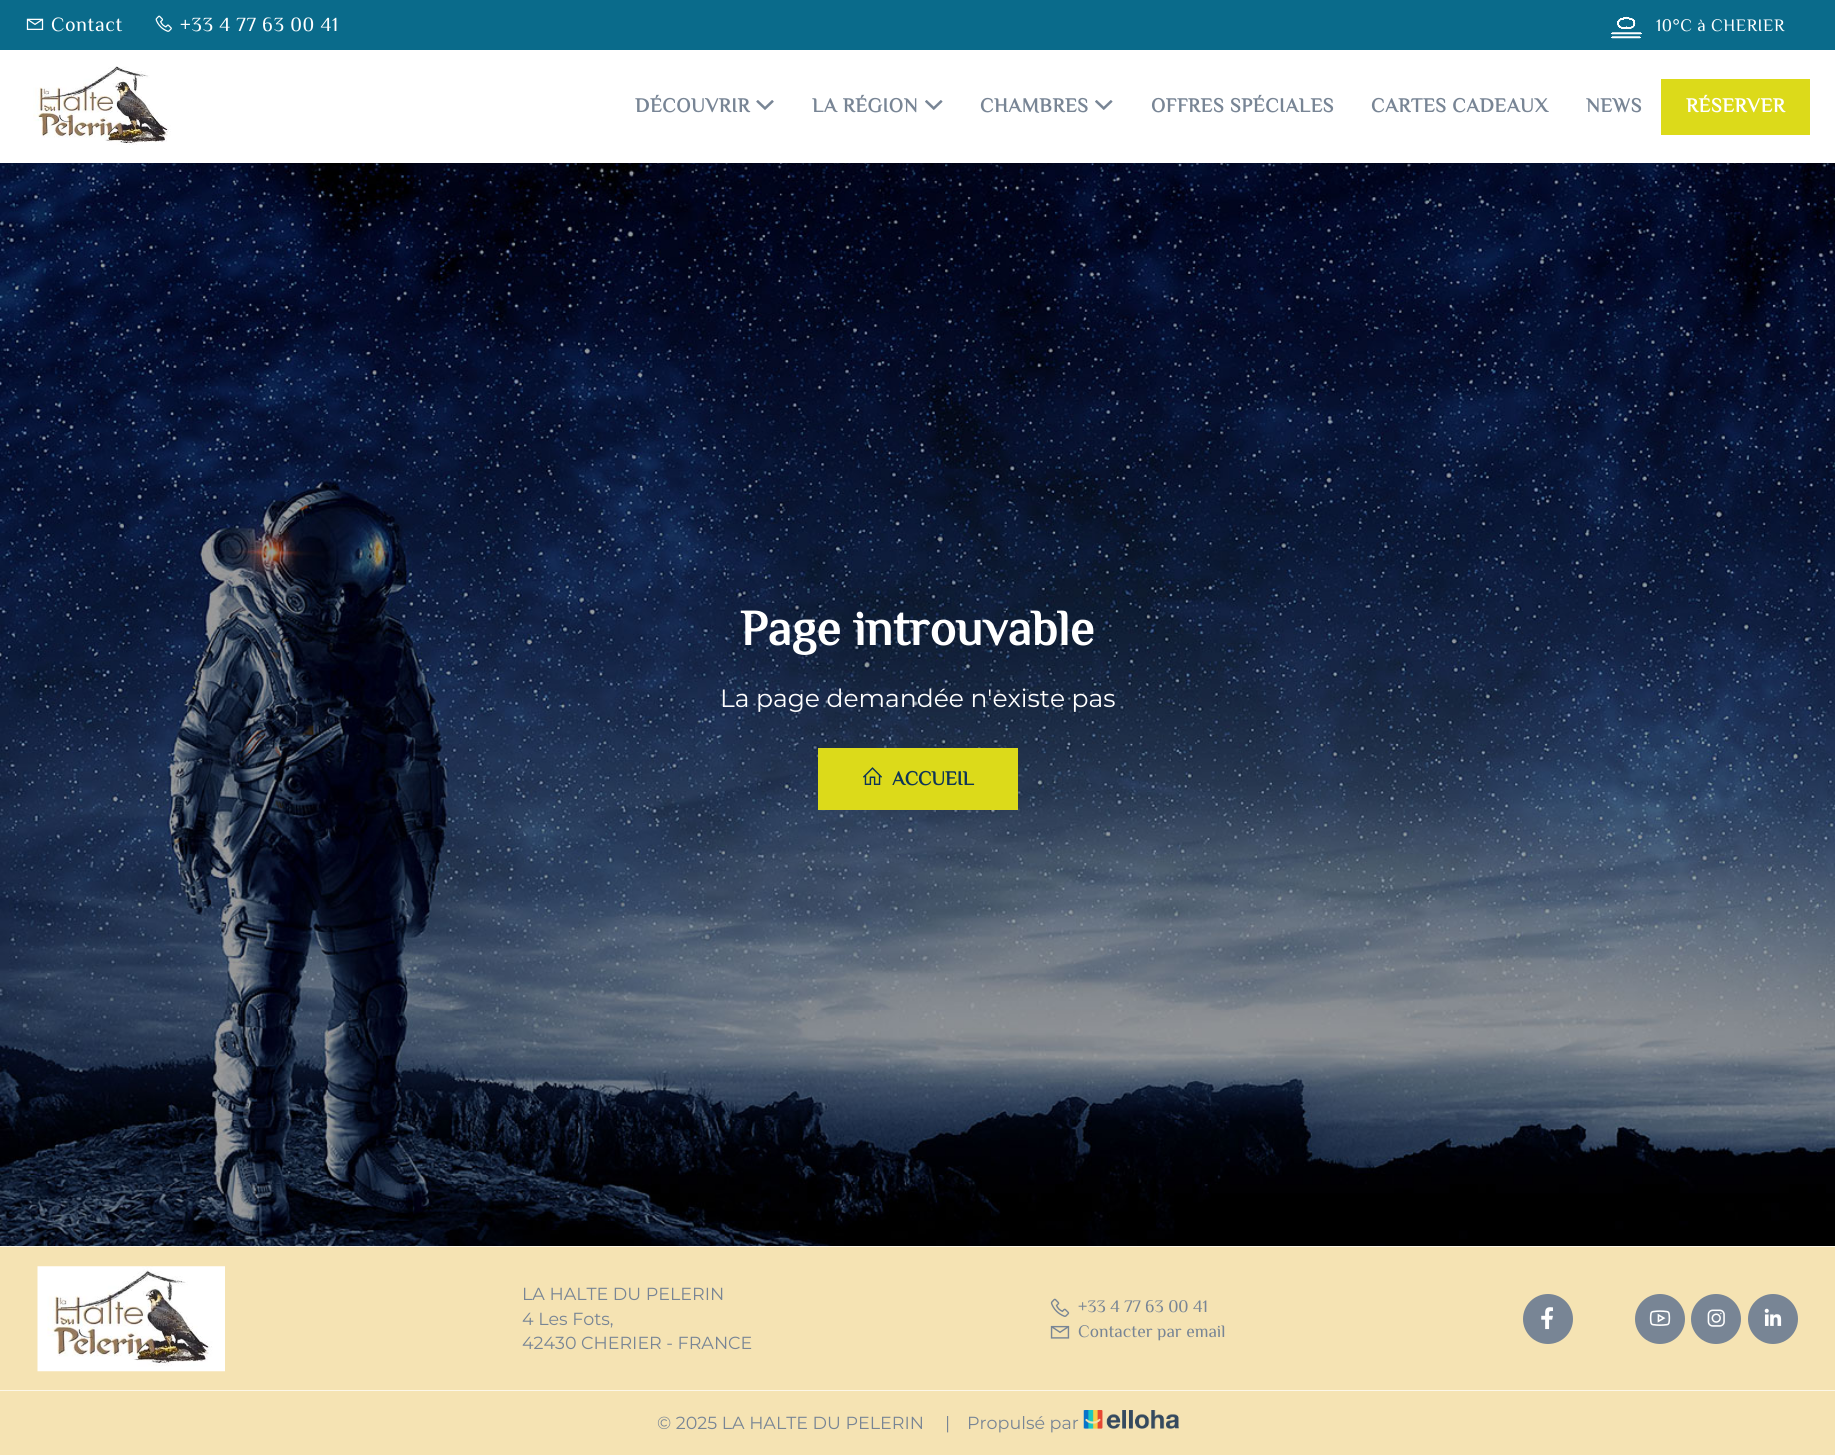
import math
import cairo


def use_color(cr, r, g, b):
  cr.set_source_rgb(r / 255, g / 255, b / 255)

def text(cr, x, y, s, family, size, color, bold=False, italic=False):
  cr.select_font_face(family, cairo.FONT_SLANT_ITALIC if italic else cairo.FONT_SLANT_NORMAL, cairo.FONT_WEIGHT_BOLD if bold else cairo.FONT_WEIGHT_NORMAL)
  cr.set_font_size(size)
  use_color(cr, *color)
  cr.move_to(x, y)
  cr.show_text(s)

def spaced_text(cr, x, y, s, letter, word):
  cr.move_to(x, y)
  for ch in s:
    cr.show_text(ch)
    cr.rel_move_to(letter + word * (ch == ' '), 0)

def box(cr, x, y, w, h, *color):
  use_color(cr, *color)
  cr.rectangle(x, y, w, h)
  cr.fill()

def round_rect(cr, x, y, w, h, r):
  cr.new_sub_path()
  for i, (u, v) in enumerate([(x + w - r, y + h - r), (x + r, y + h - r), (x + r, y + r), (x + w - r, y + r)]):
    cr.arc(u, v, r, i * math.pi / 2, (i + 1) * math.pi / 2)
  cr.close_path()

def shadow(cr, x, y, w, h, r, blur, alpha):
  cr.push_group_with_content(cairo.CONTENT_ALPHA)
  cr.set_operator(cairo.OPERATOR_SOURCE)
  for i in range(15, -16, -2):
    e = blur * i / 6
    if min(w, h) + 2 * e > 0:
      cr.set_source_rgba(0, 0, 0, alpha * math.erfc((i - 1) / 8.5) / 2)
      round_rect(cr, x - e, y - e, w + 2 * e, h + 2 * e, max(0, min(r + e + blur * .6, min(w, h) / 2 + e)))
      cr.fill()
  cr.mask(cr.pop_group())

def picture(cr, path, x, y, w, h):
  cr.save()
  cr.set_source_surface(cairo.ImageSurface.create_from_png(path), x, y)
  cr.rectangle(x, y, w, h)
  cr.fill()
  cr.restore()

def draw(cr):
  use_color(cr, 255, 255, 255)
  cr.paint()
  picture(cr, "img_07.png", 0, 163, 1835, 1083)
  use_color(cr, 0, 0, 0)
  shadow(cr, 5, 0, 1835, 163, 0, 9.5, 0.05)
  box(cr, 0, 50, 1835, 113, 255, 255, 255)
  box(cr, 0, 0, 1835, 50, 10, 107, 139)
  picture(cr, "img_01.png", 26, 18, 18, 12)
  picture(cr, "img_02.png", 155, 15, 17, 17)
  picture(cr, "img_03.png", 1611, 16, 31, 23)
  picture(cr, "img_04.png", 33, 66, 138, 79)
  picture(cr, "img_05.png", 756, 100, 18, 10)
  picture(cr, "img_06.png", 925, 100, 18, 10)
  picture(cr, "img_06.png", 1095, 100, 18, 10)
  box(cr, 1661, 79, 149, 56, 220, 218, 26)
  box(cr, 818, 748, 200, 62, 220, 218, 26)
  picture(cr, "img_08.png", 863, 767, 19, 18)
  box(cr, 0, 1247, 1835, 143, 245, 227, 179)
  box(cr, 0, 1246, 1835, 1, 252, 247, 232)
  box(cr, 0, 1390, 1835, 1, 252, 247, 232)
  picture(cr, "img_09.png", 37, 1266, 188, 106)
  picture(cr, "img_10.png", 1050, 1298, 20, 19)
  picture(cr, "img_11.png", 1050, 1325, 20, 14)
  use_color(cr, 120, 133, 149)
  cr.arc(1548, 1319, 25, 0, 2 * math.pi)
  cr.fill()
  picture(cr, "img_12.png", 1541, 1307, 12, 23)
  cr.arc(1660, 1319, 25, 0, 2 * math.pi)
  cr.fill()
  picture(cr, "img_13.png", 1649, 1310, 22, 16)
  cr.arc(1716, 1319, 25, 0, 2 * math.pi)
  cr.fill()
  picture(cr, "img_14.png", 1707, 1309, 18, 18)
  cr.arc(1773, 1319, 25, 0, 2 * math.pi)
  cr.fill()
  picture(cr, "img_15.png", 1764, 1308, 18, 18)
  box(cr, 0, 1391, 1835, 64, 245, 227, 179)
  picture(cr, "img_16.png", 1083, 1410, 96, 19)
  cr.select_font_face("Philosopher")
  cr.set_font_size(20)
  use_color(cr, 255, 255, 255)
  spaced_text(cr, 51, 31, "Contact", 0.6, 0)
  spaced_text(cr, 180, 31, "+33 4 77 63 00 41", 0.6, 0)
  cr.set_font_size(17.5)
  spaced_text(cr, 1656, 31, "10°C à CHERIER", 0.5, 0)
  cr.select_font_face("Philosopher", cairo.FONT_SLANT_NORMAL, cairo.FONT_WEIGHT_BOLD)
  cr.set_font_size(20)
  use_color(cr, 120, 133, 149)
  spaced_text(cr, 635, 112, "DÉCOUVRIR", 0.6, 0)
  spaced_text(cr, 812, 112, "LA RÉGION", 0.6, 0)
  spaced_text(cr, 980, 112, "CHAMBRES", 0.6, 0)
  spaced_text(cr, 1151, 112, "OFFRES SPÉCIALES", 0.6, 0)
  spaced_text(cr, 1371, 112, "CARTES CADEAUX", 0.6, 0)
  spaced_text(cr, 1586, 112, "NEWS", 0.6, 0)
  use_color(cr, 255, 255, 255)
  spaced_text(cr, 1686, 112, "RÉSERVER", 0.6, 0)
  text(cr, 740, 645, "Page introuvable", "Philosopher", 50, (255, 255, 255), bold=True)
  text(cr, 720, 707, "La page demandée n'existe pas", "Montserrat Thin", 25, (255, 255, 255))
  text(cr, 892, 785, "ACCUEIL", "Philosopher", 20, (15, 53, 86), bold=True)
  text(cr, 522, 1300, "LA HALTE DU PELERIN", "Montserrat Thin", 17.5, (120, 133, 149))
  text(cr, 522, 1325, "4 Les Fots,", "Montserrat Thin", 17.5, (120, 133, 149))
  text(cr, 522, 1349, "42430 CHERIER - FRANCE", "Montserrat Thin", 17.5, (120, 133, 149))
  text(cr, 1078, 1312, "+33 4 77 63 00 41", "Philosopher", 17.5, (120, 133, 149))
  text(cr, 1078, 1337, "Contacter par email", "Philosopher", 17.5, (120, 133, 149))
  text(cr, 657, 1429, "© 2025 LA HALTE DU PELERIN", "Montserrat Thin", 17.5, (120, 133, 149))
  text(cr, 945, 1429, "|", "Montserrat Thin", 17.5, (120, 133, 149))
  text(cr, 967, 1429, "Propulsé par", "Montserrat Thin", 17.5, (120, 133, 149))


surface = cairo.ImageSurface(cairo.FORMAT_RGB24, 1835, 1455)
cr = cairo.Context(surface)
options = cairo.FontOptions()
options.set_hint_metrics(cairo.HINT_METRICS_OFF)
options.set_hint_style(cairo.HINT_STYLE_NONE)
cr.set_font_options(options)
cr.set_miter_limit(4)
draw(cr)
surface.write_to_png("out.png")
